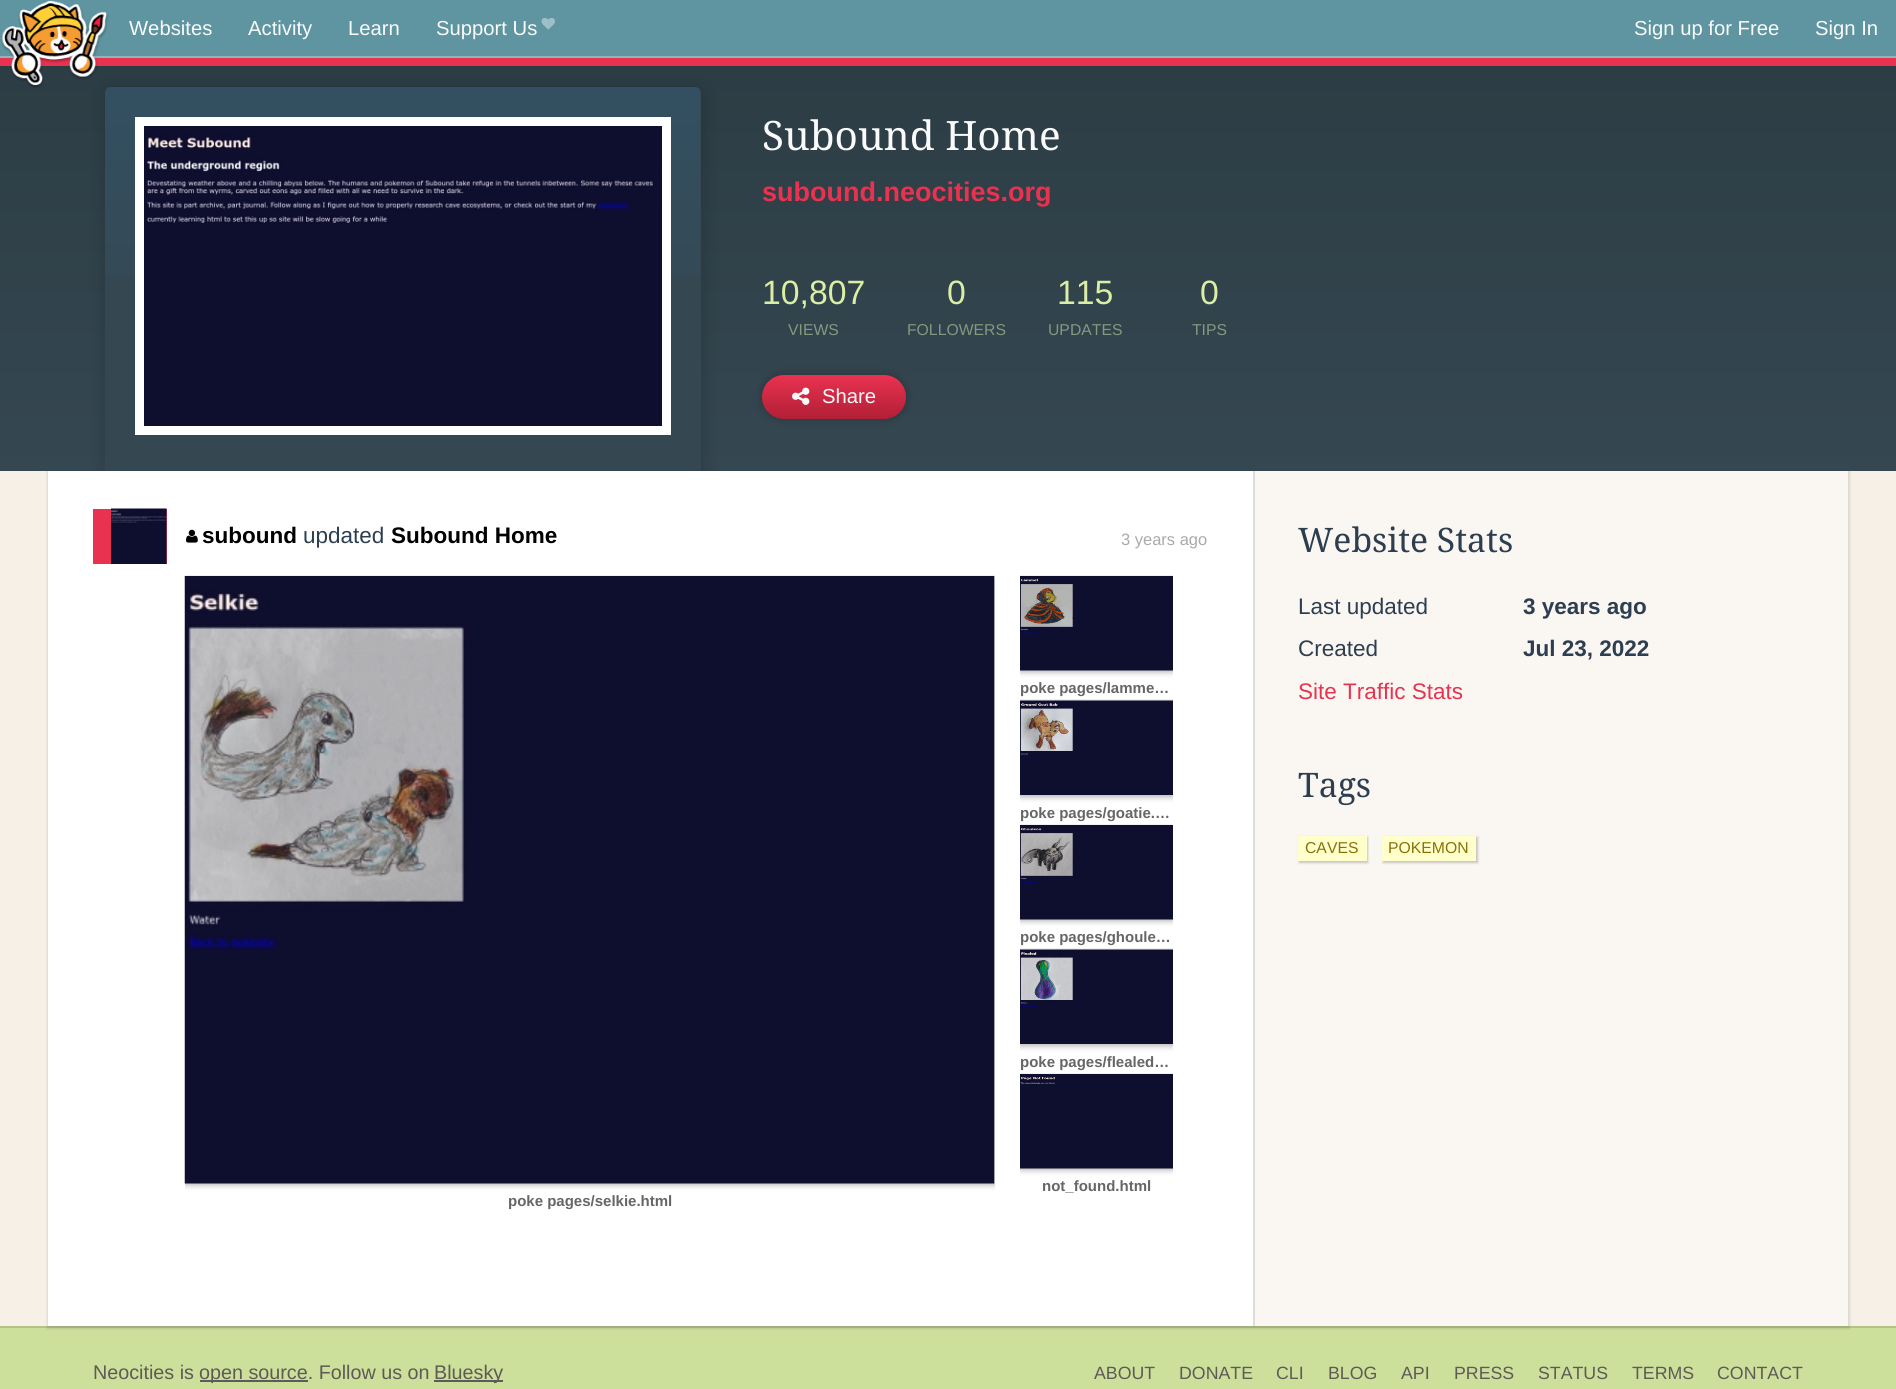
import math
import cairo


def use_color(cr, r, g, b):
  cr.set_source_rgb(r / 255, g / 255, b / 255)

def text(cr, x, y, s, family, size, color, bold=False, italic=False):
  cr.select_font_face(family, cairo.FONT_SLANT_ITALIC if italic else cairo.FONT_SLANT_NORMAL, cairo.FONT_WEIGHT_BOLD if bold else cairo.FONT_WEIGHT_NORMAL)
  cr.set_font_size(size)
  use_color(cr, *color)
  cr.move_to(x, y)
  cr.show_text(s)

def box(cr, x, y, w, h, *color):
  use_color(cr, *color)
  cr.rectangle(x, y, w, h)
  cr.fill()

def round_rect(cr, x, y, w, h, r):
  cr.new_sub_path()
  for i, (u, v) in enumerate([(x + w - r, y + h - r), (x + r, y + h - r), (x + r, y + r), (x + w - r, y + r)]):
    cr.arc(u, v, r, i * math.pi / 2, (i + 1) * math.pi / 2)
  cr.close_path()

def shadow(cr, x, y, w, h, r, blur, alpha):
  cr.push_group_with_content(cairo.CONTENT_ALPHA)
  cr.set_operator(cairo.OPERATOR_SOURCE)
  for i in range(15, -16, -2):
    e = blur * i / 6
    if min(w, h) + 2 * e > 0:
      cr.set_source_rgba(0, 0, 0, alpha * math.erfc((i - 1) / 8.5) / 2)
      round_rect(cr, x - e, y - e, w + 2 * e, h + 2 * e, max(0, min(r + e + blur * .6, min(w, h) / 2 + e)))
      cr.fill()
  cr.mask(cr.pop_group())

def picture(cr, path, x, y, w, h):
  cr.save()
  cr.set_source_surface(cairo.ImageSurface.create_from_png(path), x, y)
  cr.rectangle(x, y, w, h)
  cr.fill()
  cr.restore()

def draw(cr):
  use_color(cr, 204, 223, 155)
  cr.paint()
  box(cr, 0, 471, 1896, 855, 246, 240, 230)
  gradient = cairo.LinearGradient(948, 27, 948, 471)
  gradient.add_color_stop_rgba(0, 0.169, 0.235, 0.263, 1)
  gradient.add_color_stop_rgba(1, 0.208, 0.278, 0.318, 1)
  cr.set_source(gradient)
  cr.rectangle(0, 66, 1896, 405)
  cr.fill()
  box(cr, 0, 1326, 1896, 2, 179, 195, 136)
  cr.save()
  cr.rectangle(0, 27, 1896, 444)
  cr.clip()
  use_color(cr, 0, 0, 0)
  shadow(cr, 104, 87, 601, 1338, 9, 9, 0.15)
  cr.restore()
  box(cr, 0, 58, 1896, 8, 233, 50, 80)
  box(cr, 0, 0, 1896, 56, 94, 149, 161)
  box(cr, 0, 56, 1896, 2, 146, 180, 189)
  use_color(cr, 53, 71, 81)
  cr.new_path()
  cr.move_to(111, 87)
  cr.line_to(695, 87)
  cr.curve_to(698.5, 87, 701, 89.5, 701, 93)
  cr.line_to(701, 471)
  cr.line_to(105, 471)
  cr.line_to(105, 93)
  cr.curve_to(105, 89.5, 107.5, 87, 111, 87)
  cr.close_path()
  cr.fill()
  picture(cr, "img_03.png", 105, 87, 596, 189)
  picture(cr, "img_01.png", 1, 0, 108, 88)
  picture(cr, "img_02.png", 541, 18, 14, 12)
  picture(cr, "img_04.png", 144, 126, 518, 300)
  cr.rectangle(139.5, 121.5, 527, 309)
  use_color(cr, 255, 255, 255)
  cr.set_line_width(9)
  cr.stroke()
  use_color(cr, 0, 0, 0)
  shadow(cr, 762, 375, 144, 44, 22, 4.5, 0.25)
  gradient = cairo.LinearGradient(834, 375, 834, 419)
  gradient.add_color_stop_rgba(0, 0.914, 0.196, 0.314, 1)
  gradient.add_color_stop_rgba(1, 0.694, 0.122, 0.212, 1)
  cr.set_source(gradient)
  round_rect(cr, 762, 375, 144, 44, 22)
  cr.fill()
  picture(cr, "img_05.png", 792, 387, 18, 18)
  use_color(cr, 0, 0, 0)
  shadow(cr, 47, 471, 1803, 858, 0, 1, 0.1)
  box(cr, 1255, 471, 593, 855, 250, 246, 241)
  box(cr, 1253, 471, 2, 855, 221, 221, 221)
  box(cr, 48, 471, 1205, 855, 255, 255, 255)
  box(cr, 93, 509, 74, 55, 233, 50, 80)
  picture(cr, "img_06.png", 111, 508, 56, 56)
  picture(cr, "img_07.png", 186, 529, 12, 14)
  cr.save()
  cr.rectangle(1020, 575, 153, 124)
  cr.clip()
  use_color(cr, 0, 0, 0)
  shadow(cr, 1020, 578, 153, 94, 0, 3, 0.3)
  cr.restore()
  picture(cr, "img_08.png", 1020, 576, 153, 95)
  cr.save()
  cr.rectangle(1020, 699, 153, 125)
  cr.clip()
  use_color(cr, 0, 0, 0)
  shadow(cr, 1020, 702, 153, 95, 0, 3, 0.3)
  cr.restore()
  picture(cr, "img_09.png", 1020, 700, 153, 95)
  cr.save()
  cr.rectangle(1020, 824, 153, 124)
  cr.clip()
  use_color(cr, 0, 0, 0)
  shadow(cr, 1020, 827, 153, 94, 0, 3, 0.3)
  cr.restore()
  picture(cr, "img_10.png", 1020, 825, 153, 95)
  cr.save()
  cr.rectangle(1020, 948, 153, 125)
  cr.clip()
  use_color(cr, 0, 0, 0)
  shadow(cr, 1020, 951, 153, 95, 0, 3, 0.3)
  cr.restore()
  picture(cr, "img_11.png", 1020, 949, 153, 95)
  cr.save()
  cr.rectangle(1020, 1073, 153, 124)
  cr.clip()
  use_color(cr, 0, 0, 0)
  shadow(cr, 1020, 1076, 153, 94, 0, 3, 0.3)
  cr.restore()
  picture(cr, "img_12.png", 1020, 1074, 153, 95)
  cr.save()
  cr.rectangle(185, 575, 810, 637)
  cr.clip()
  use_color(cr, 0, 0, 0)
  shadow(cr, 185, 578, 810, 607, 0, 3, 0.3)
  cr.restore()
  picture(cr, "img_13.png", 184, 576, 811, 608)
  use_color(cr, 0, 0, 0)
  shadow(cr, 1299, 837, 69, 26, 0, 1, 0.2)
  box(cr, 1298, 836, 69, 25, 255, 255, 204)
  use_color(cr, 0, 0, 0)
  shadow(cr, 1383, 837, 95, 26, 0, 1, 0.2)
  box(cr, 1382, 836, 94, 25, 255, 255, 204)
  box(cr, 200, 1380, 108, 2, 94, 91, 86)
  box(cr, 434, 1380, 69, 2, 94, 91, 86)
  text(cr, 129, 35, "Websites", "Liberation Sans", 20.25, (250, 250, 250))
  text(cr, 248, 35, "Activity", "Liberation Sans", 20.25, (250, 250, 250))
  text(cr, 348, 35, "Learn", "Liberation Sans", 20.25, (250, 250, 250))
  text(cr, 436, 35, "Support Us", "Liberation Sans", 20.25, (250, 250, 250))
  text(cr, 1634, 35, "Sign up for Free", "Liberation Sans", 20.25, (250, 250, 250))
  text(cr, 1815, 35, "Sign In", "Liberation Sans", 20.25, (250, 250, 250))
  text(cr, 762, 150, "Subound Home", "Droid Serif", 40.5, (250, 250, 250))
  text(cr, 762, 201, "subound.neocities.org", "Liberation Sans", 27, (233, 50, 80), bold=True)
  text(cr, 762, 304, "10,807", "Liberation Sans", 33.75, (218, 238, 165))
  text(cr, 788, 335, "VIEWS", "Liberation Sans", 15.75, (132, 153, 126))
  text(cr, 947, 304, "0", "Liberation Sans", 33.75, (218, 238, 165))
  text(cr, 907, 335, "FOLLOWERS", "Liberation Sans", 15.75, (132, 153, 126))
  text(cr, 1057, 304, "115", "Liberation Sans", 33.75, (218, 238, 165))
  text(cr, 1048, 335, "UPDATES", "Liberation Sans", 15.75, (132, 153, 126))
  text(cr, 1200, 304, "0", "Liberation Sans", 33.75, (218, 238, 165))
  text(cr, 1192, 335, "TIPS", "Liberation Sans", 15.75, (132, 153, 126))
  text(cr, 822, 403, "Share", "Liberation Sans", 20.25, (250, 250, 250))
  text(cr, 202, 543, "subound", "Liberation Sans", 22.5, (0, 0, 0), bold=True)
  text(cr, 303, 543, "updated", "Liberation Sans", 22.5, (44, 62, 80))
  text(cr, 391, 543, "Subound Home", "Liberation Sans", 22.5, (0, 0, 0), bold=True)
  text(cr, 1121, 545, "3 years ago", "Liberation Sans", 16.5, (170, 170, 170))
  text(cr, 1020, 693, "poke pages/lamme…", "Liberation Sans", 15, (102, 102, 102), bold=True)
  text(cr, 1020, 818, "poke pages/goatie.…", "Liberation Sans", 15, (102, 102, 102), bold=True)
  text(cr, 1020, 942, "poke pages/ghoule…", "Liberation Sans", 15, (102, 102, 102), bold=True)
  text(cr, 1020, 1067, "poke pages/flealed…", "Liberation Sans", 15, (102, 102, 102), bold=True)
  text(cr, 1042, 1191, "not_found.html", "Liberation Sans", 15, (102, 102, 102), bold=True)
  text(cr, 508, 1206, "poke pages/selkie.html", "Liberation Sans", 15, (102, 102, 102), bold=True)
  text(cr, 1298, 552, "Website Stats", "Droid Serif", 33.75, (44, 62, 80))
  text(cr, 1298, 614, "Last updated", "Liberation Sans", 22.5, (44, 62, 80))
  text(cr, 1523, 614, "3 years ago", "Liberation Sans", 22.5, (44, 62, 80), bold=True)
  text(cr, 1298, 656, "Created", "Liberation Sans", 22.5, (44, 62, 80))
  text(cr, 1523, 656, "Jul 23, 2022", "Liberation Sans", 22.5, (44, 62, 80), bold=True)
  text(cr, 1298, 699, "Site Traffic Stats", "Liberation Sans", 22.5, (233, 50, 80))
  text(cr, 1298, 797, "Tags", "Droid Serif", 33.75, (44, 62, 80))
  text(cr, 1305, 853, "CAVES", "Liberation Sans", 15.75, (137, 113, 6))
  text(cr, 1388, 853, "POKEMON", "Liberation Sans", 15.75, (137, 113, 6))
  text(cr, 93, 1379, "Neocities is", "Liberation Sans", 19.75, (94, 91, 86))
  text(cr, 199, 1379, "open source. Follow us on", "Liberation Sans", 19.75, (94, 91, 86))
  text(cr, 434, 1379, "Bluesky", "Liberation Sans", 19.75, (94, 91, 86))
  text(cr, 1094, 1379, "ABOUT", "Liberation Sans", 17.75, (94, 91, 86))
  text(cr, 1179, 1379, "DONATE", "Liberation Sans", 17.75, (94, 91, 86))
  text(cr, 1276, 1379, "CLI", "Liberation Sans", 17.75, (94, 91, 86))
  text(cr, 1328, 1379, "BLOG", "Liberation Sans", 17.75, (94, 91, 86))
  text(cr, 1401, 1379, "API", "Liberation Sans", 17.75, (94, 91, 86))
  text(cr, 1454, 1379, "PRESS", "Liberation Sans", 17.75, (94, 91, 86))
  text(cr, 1538, 1379, "STATUS", "Liberation Sans", 17.75, (94, 91, 86))
  text(cr, 1632, 1379, "TERMS", "Liberation Sans", 17.75, (94, 91, 86))
  text(cr, 1717, 1379, "CONTACT", "Liberation Sans", 17.75, (94, 91, 86))


surface = cairo.ImageSurface(cairo.FORMAT_RGB24, 1896, 1389)
cr = cairo.Context(surface)
options = cairo.FontOptions()
options.set_hint_metrics(cairo.HINT_METRICS_OFF)
options.set_hint_style(cairo.HINT_STYLE_NONE)
cr.set_font_options(options)
cr.set_miter_limit(4)
draw(cr)
surface.write_to_png("out.png")
